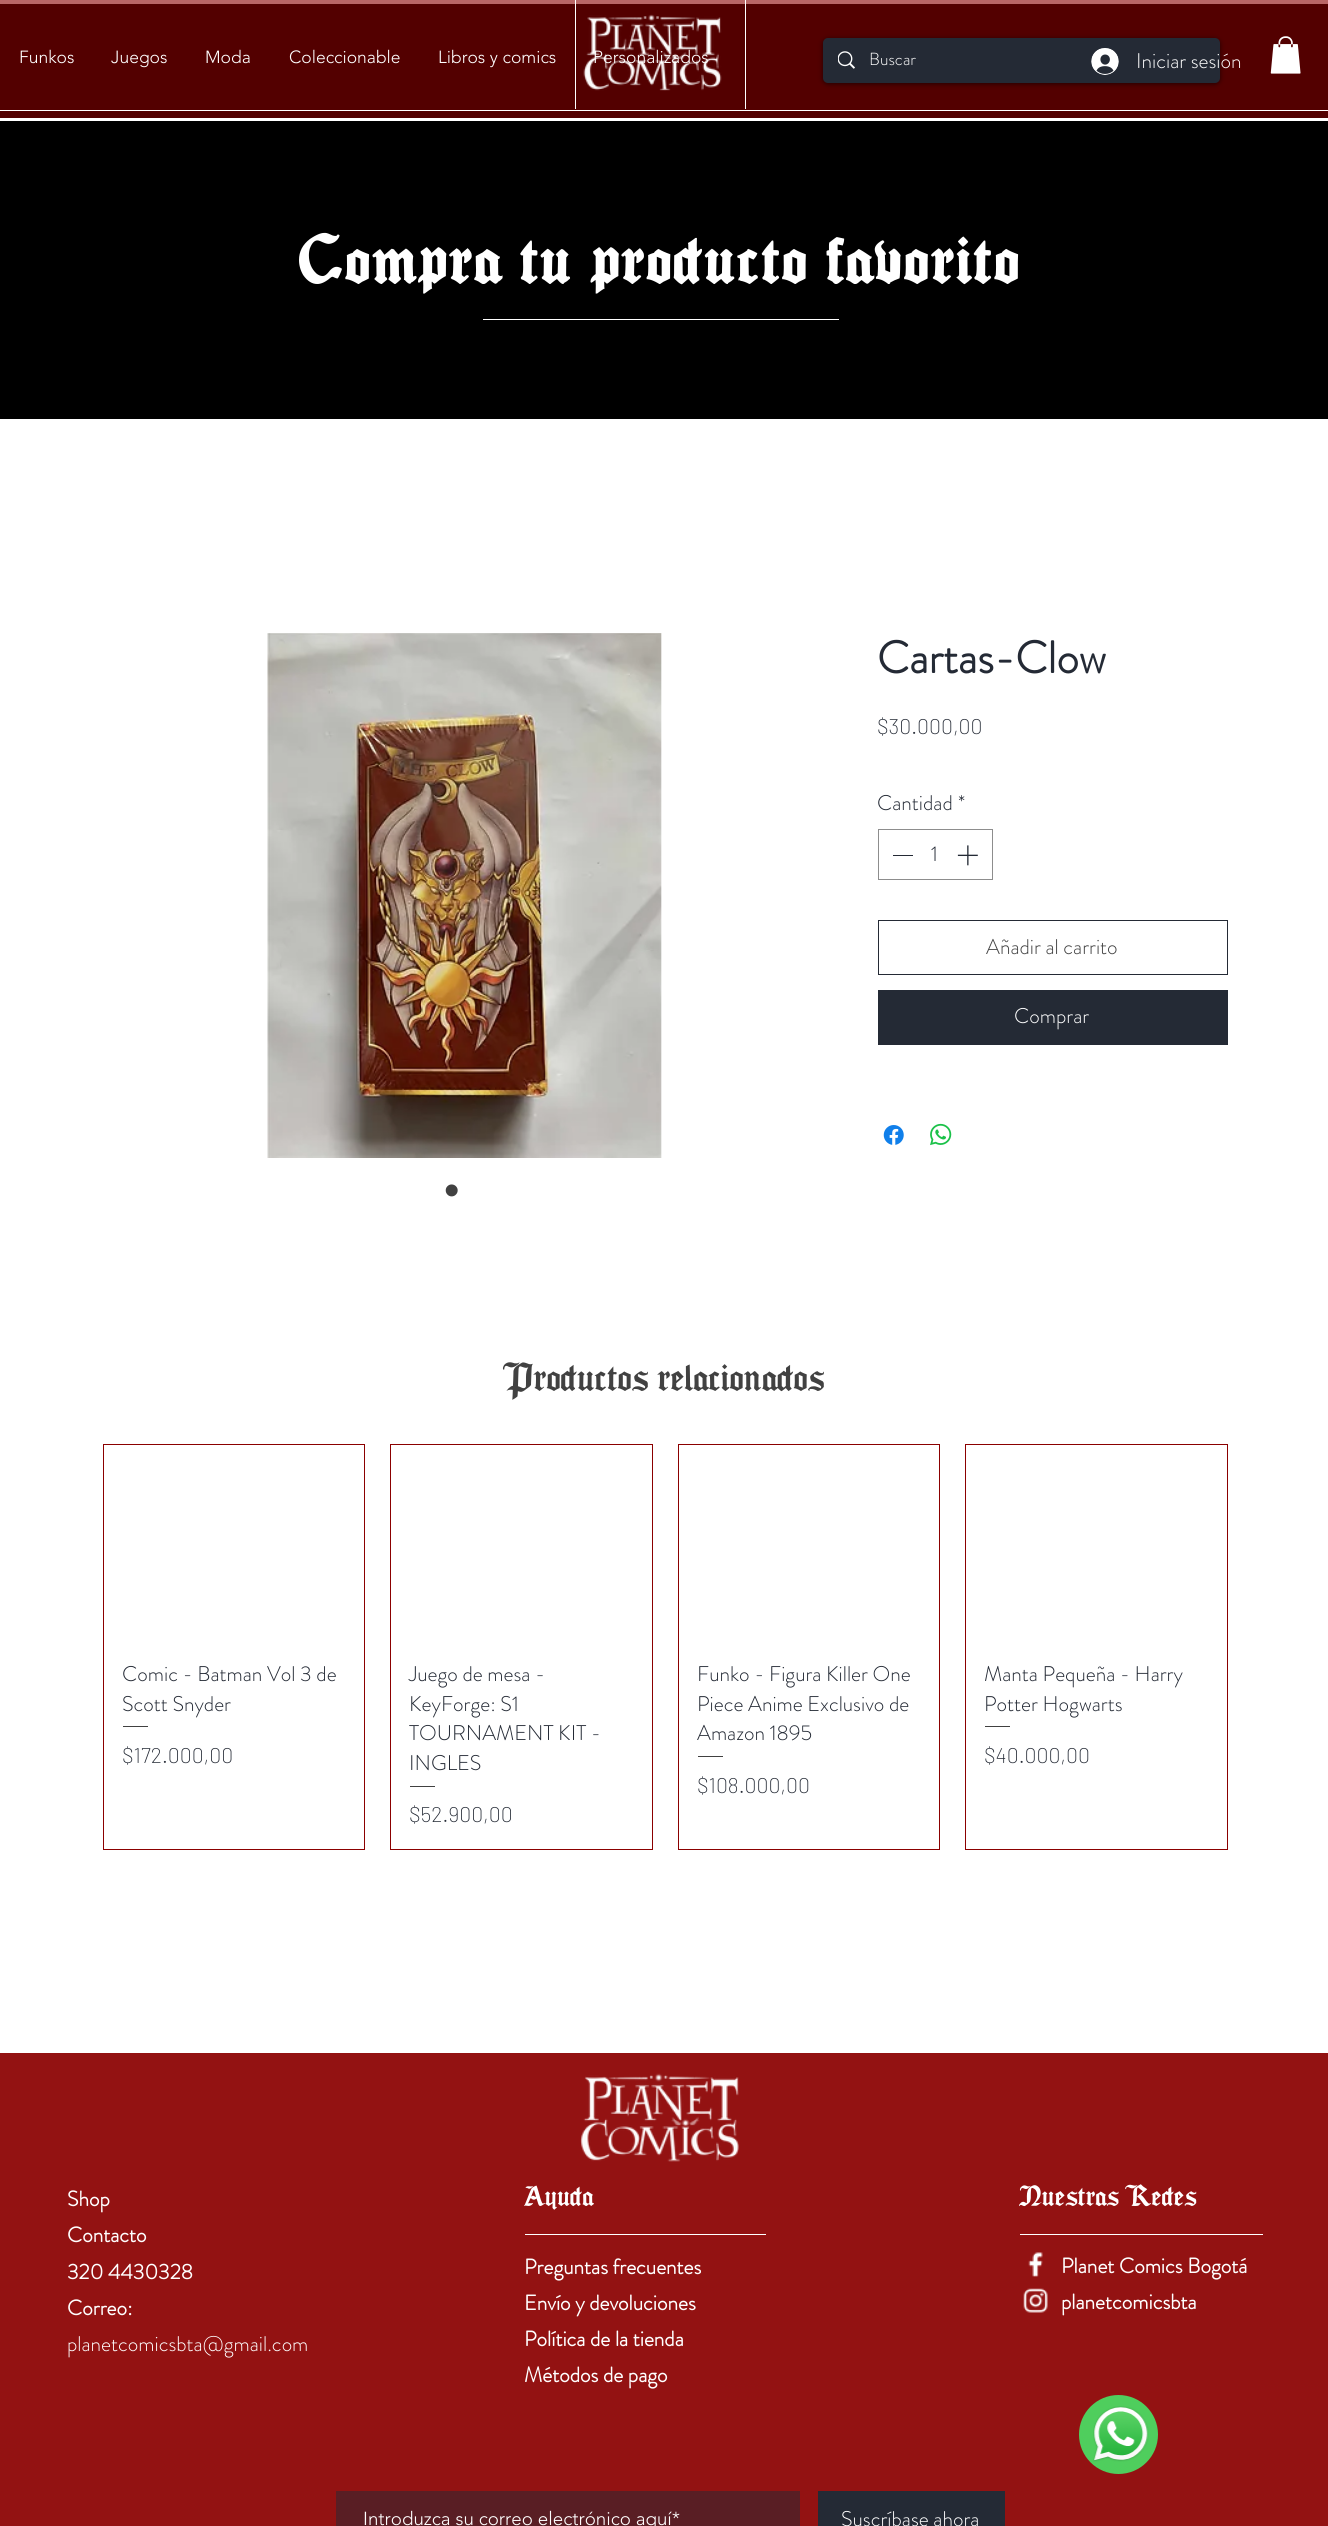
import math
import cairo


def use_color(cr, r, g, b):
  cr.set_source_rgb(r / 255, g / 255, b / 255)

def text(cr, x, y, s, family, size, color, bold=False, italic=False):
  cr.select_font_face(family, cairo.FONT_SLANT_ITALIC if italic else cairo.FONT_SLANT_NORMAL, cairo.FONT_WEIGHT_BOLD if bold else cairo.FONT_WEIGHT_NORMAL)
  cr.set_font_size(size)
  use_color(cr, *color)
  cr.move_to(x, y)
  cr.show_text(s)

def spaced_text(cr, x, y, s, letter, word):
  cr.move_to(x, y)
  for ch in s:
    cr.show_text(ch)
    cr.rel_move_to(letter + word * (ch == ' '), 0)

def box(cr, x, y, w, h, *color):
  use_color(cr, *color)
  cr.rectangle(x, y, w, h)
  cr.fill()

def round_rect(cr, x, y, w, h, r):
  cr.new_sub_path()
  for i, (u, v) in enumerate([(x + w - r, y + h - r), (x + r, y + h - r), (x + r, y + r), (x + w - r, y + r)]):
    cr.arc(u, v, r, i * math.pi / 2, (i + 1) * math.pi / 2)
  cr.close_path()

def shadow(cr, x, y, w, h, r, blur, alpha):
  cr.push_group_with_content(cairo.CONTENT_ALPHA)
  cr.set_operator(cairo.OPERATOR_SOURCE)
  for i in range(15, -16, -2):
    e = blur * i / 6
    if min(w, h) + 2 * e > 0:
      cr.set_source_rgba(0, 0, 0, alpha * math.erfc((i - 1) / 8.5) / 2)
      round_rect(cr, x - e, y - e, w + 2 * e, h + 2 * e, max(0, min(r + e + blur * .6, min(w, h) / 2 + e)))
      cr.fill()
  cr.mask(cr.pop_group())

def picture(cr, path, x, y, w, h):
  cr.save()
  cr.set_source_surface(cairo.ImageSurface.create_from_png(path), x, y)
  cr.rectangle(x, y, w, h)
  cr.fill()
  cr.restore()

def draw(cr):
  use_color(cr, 255, 255, 255)
  cr.paint()
  box(cr, 0, 0, 1328, 4, 185, 102, 102)
  box(cr, 0, 4, 1328, 114, 83, 0, 0)
  box(cr, 575, 0, 1, 109, 255, 255, 255)
  picture(cr, "img_01.png", 583, 14, 139, 77)
  box(cr, 745, 0, 1, 109, 255, 255, 255)
  use_color(cr, 0, 0, 0)
  shadow(cr, 823, 39, 397, 45, 5, 2.5, 0.6)
  use_color(cr, 36, 42, 53)
  round_rect(cr, 823, 38, 397, 45, 5)
  cr.fill()
  picture(cr, "img_02.png", 838, 51, 17, 18)
  box(cr, 0, 110, 1328, 1, 255, 255, 255)
  picture(cr, "img_03.png", 1091, 48, 28, 27)
  picture(cr, "img_04.png", 1270, 36, 31, 38)
  box(cr, 0, 121, 1328, 298, 0, 0, 0)
  box(cr, 483, 319, 356, 1, 255, 255, 255)
  cr.rectangle(878.5, 829.5, 114, 50)
  use_color(cr, 141, 141, 141)
  cr.set_line_width(1)
  cr.stroke()
  box(cr, 893, 855, 20, 1, 36, 42, 53)
  picture(cr, "img_05.png", 957, 845, 21, 21)
  cr.rectangle(878.5, 920.5, 349, 54)
  cr.stroke()
  box(cr, 878, 990, 350, 55, 36, 42, 53)
  picture(cr, "img_06.png", 883, 1125, 21, 20)
  picture(cr, "img_07.png", 930, 1123, 22, 23)
  picture(cr, "img_08.png", 267, 633, 395, 525)
  cr.rectangle(103.5, 1444.5, 261, 405)
  use_color(cr, 139, 0, 0)
  cr.stroke()
  box(cr, 123, 1726, 25, 1, 65, 65, 65)
  cr.rectangle(390.5, 1444.5, 262, 405)
  use_color(cr, 139, 0, 0)
  cr.stroke()
  box(cr, 410, 1786, 25, 1, 65, 65, 65)
  cr.rectangle(678.5, 1444.5, 261, 405)
  use_color(cr, 139, 0, 0)
  cr.stroke()
  box(cr, 698, 1756, 25, 1, 65, 65, 65)
  cr.rectangle(965.5, 1444.5, 262, 405)
  use_color(cr, 139, 0, 0)
  cr.stroke()
  box(cr, 985, 1726, 25, 1, 65, 65, 65)
  box(cr, 0, 2053, 1328, 473, 147, 18, 18)
  picture(cr, "img_09.png", 580, 2073, 159, 89)
  box(cr, 525, 2234, 241, 1, 255, 255, 255)
  box(cr, 1020, 2234, 243, 1, 255, 255, 255)
  picture(cr, "img_10.png", 1028, 2252, 15, 25)
  picture(cr, "img_11.png", 1023, 2288, 25, 25)
  box(cr, 336, 2491, 464, 35, 89, 30, 36)
  box(cr, 818, 2491, 187, 35, 36, 42, 53)
  use_color(cr, 79, 206, 93)
  cr.arc(1118.5, 2434.5, 39.5, 0, 2 * math.pi)
  cr.fill()
  picture(cr, "img_12.png", 1093, 2406, 56, 56)
  text(cr, 19, 63, "Funkos", "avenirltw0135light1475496 Light", 17.5, (255, 255, 255))
  text(cr, 111, 63, "Juegos", "avenirltw0135light1475496 Light", 17.5, (255, 255, 255))
  text(cr, 205, 63, "Moda", "avenirltw0135light1475496 Light", 17.5, (255, 255, 255))
  text(cr, 289, 63, "Coleccionable", "avenirltw0135light1475496 Light", 17.5, (255, 255, 255))
  text(cr, 438, 63, "Libros y comics", "avenirltw0135light1475496 Light", 17.5, (255, 255, 255))
  text(cr, 593, 63, "Personalizados", "avenirltw0135light1475496 Light", 17.5, (255, 255, 255))
  text(cr, 869, 65, "Buscar", "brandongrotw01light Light", 17.5, (255, 255, 255))
  text(cr, 1136, 68, "Iniciar sesión", "brandongrotw01light Light", 21.25, (255, 255, 255))
  cr.select_font_face("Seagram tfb", cairo.FONT_SLANT_NORMAL, cairo.FONT_WEIGHT_BOLD)
  cr.set_font_size(57.5)
  spaced_text(cr, 299, 284, "Compra tu producto favorito", 2.9, 0)
  text(cr, 877, 673, "Cartas-Clow", "brandongrotw01light", 45, (36, 42, 53), bold=True)
  text(cr, 877, 734, "$30.000,00", "Barlow ExtraLight", 21.25, (36, 42, 53))
  text(cr, 877, 810, "Cantidad", "brandongrotw01light Light", 21.25, (36, 42, 53))
  text(cr, 958, 810, "*", "brandongrotw01light Light", 21.25, (36, 42, 53))
  text(cr, 931, 861, "1", "brandongrotw01light Light", 21.25, (36, 42, 53))
  text(cr, 986, 954, "Añadir al carrito", "brandongrotw01light Light", 21.25, (65, 65, 65))
  text(cr, 1014, 1023, "Comprar", "brandongrotw01light Light", 21.25, (255, 255, 255))
  text(cr, 444, 1205, "•", "Liberation Sans", 44, (65, 65, 65))
  text(cr, 503, 1391, "Productos relacionados", "Seagram tfb", 33.75, (65, 65, 65))
  text(cr, 122, 1681, "Comic - Batman Vol 3 de", "brandongrotw01light Light", 21.25, (36, 42, 53))
  text(cr, 122, 1711, "Scott Snyder", "brandongrotw01light Light", 21.25, (36, 42, 53))
  text(cr, 122, 1763, "$172.000,00", "Barlow ExtraLight", 21.25, (36, 42, 53))
  text(cr, 409, 1681, "Juego de mesa -", "brandongrotw01light Light", 21.25, (36, 42, 53))
  text(cr, 409, 1711, "KeyForge: S1", "brandongrotw01light Light", 21.25, (36, 42, 53))
  text(cr, 409, 1740, "TOURNAMENT KIT -", "brandongrotw01light Light", 21.25, (36, 42, 53))
  text(cr, 409, 1770, "INGLES", "brandongrotw01light Light", 21.25, (36, 42, 53))
  text(cr, 409, 1822, "$52.900,00", "Barlow ExtraLight", 21.25, (36, 42, 53))
  text(cr, 697, 1681, "Funko - Figura Killer One", "brandongrotw01light Light", 21.25, (36, 42, 53))
  text(cr, 697, 1711, "Piece Anime Exclusivo de", "brandongrotw01light Light", 21.25, (36, 42, 53))
  text(cr, 697, 1740, "Amazon 1895", "brandongrotw01light Light", 21.25, (36, 42, 53))
  text(cr, 697, 1793, "$108.000,00", "Barlow ExtraLight", 21.25, (36, 42, 53))
  text(cr, 984, 1681, "Manta Pequeña - Harry", "brandongrotw01light Light", 21.25, (36, 42, 53))
  text(cr, 984, 1711, "Potter Hogwarts", "brandongrotw01light Light", 21.25, (36, 42, 53))
  text(cr, 984, 1763, "$40.000,00", "Barlow ExtraLight", 21.25, (36, 42, 53))
  text(cr, 67, 2206, "Shop", "brandongrotw01light", 21.25, (255, 255, 255), bold=True)
  text(cr, 67, 2242, "Contacto", "brandongrotw01light", 21.25, (255, 255, 255), bold=True)
  text(cr, 67, 2279, "320 4430328", "brandongrotw01light", 21.25, (255, 255, 255), bold=True)
  text(cr, 67, 2315, "Correo:", "brandongrotw01light", 21.25, (255, 255, 255), bold=True)
  text(cr, 67, 2351, "planetcomicsbta@gmail.com", "brandongrotw01light Light", 21.25, (255, 255, 255))
  text(cr, 524, 2206, "Ayuda", "Seagram tfb", 25, (255, 255, 255))
  text(cr, 524, 2274, "Preguntas frecuentes", "brandongrotw01light", 21.25, (255, 255, 255), bold=True)
  text(cr, 524, 2310, "Envío y devoluciones", "brandongrotw01light", 21.25, (255, 255, 255), bold=True)
  text(cr, 524, 2346, "Política de la tienda", "brandongrotw01light", 21.25, (255, 255, 255), bold=True)
  text(cr, 524, 2382, "Métodos de pago", "brandongrotw01light", 21.25, (255, 255, 255), bold=True)
  text(cr, 1019, 2206, "Nuestras Redes", "Seagram tfb", 25, (255, 255, 255))
  text(cr, 1061, 2273, "Planet Comics Bogotá", "brandongrotw01light", 21.25, (255, 255, 255), bold=True)
  text(cr, 1061, 2309, "planetcomicsbta", "brandongrotw01light", 21.25, (255, 255, 255), bold=True)
  text(cr, 363, 2525, "Introduzca su correo electrónico aquí*", "avenirltw0135light1475496 Light", 18.75, (255, 255, 255))
  text(cr, 841, 2526, "Suscríbase ahora", "brandongrotw01light Light", 21.25, (255, 255, 255))


surface = cairo.ImageSurface(cairo.FORMAT_RGB24, 1328, 2526)
cr = cairo.Context(surface)
options = cairo.FontOptions()
options.set_hint_metrics(cairo.HINT_METRICS_OFF)
options.set_hint_style(cairo.HINT_STYLE_NONE)
cr.set_font_options(options)
cr.set_miter_limit(4)
draw(cr)
surface.write_to_png("out.png")
